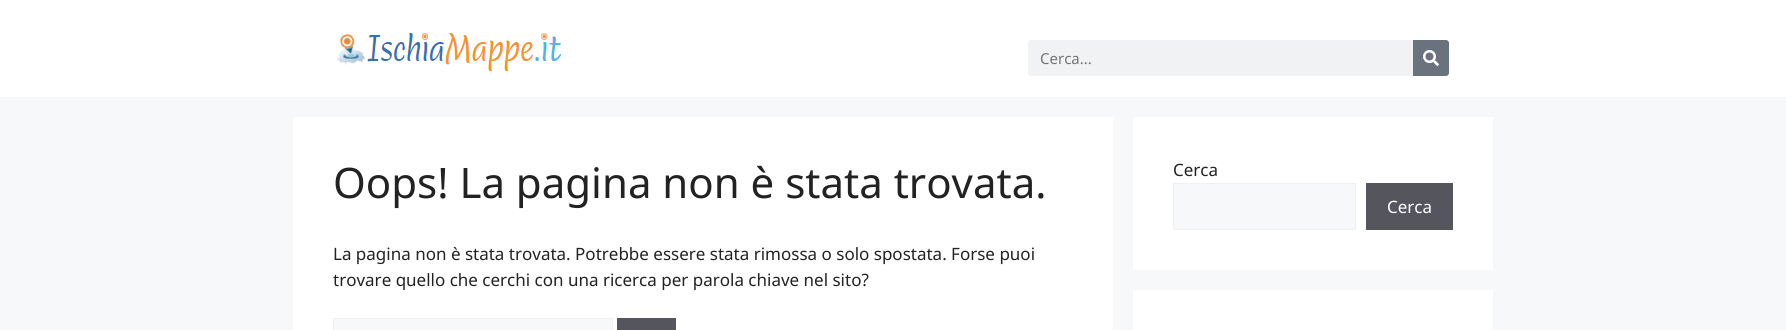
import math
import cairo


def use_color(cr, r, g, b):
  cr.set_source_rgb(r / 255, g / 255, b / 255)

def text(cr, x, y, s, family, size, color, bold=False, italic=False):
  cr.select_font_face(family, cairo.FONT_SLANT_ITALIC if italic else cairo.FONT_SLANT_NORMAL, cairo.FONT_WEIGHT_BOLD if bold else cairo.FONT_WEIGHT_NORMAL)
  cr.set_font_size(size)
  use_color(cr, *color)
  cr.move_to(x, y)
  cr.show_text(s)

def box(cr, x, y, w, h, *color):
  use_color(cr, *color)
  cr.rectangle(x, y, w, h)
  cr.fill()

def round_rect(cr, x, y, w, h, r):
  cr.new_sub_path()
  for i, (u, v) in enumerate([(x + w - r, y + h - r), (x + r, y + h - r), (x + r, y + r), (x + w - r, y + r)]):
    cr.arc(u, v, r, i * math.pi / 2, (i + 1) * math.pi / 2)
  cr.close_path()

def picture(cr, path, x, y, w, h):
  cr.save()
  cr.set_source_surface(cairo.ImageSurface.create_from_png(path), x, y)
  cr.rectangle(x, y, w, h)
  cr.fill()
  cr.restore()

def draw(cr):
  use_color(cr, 247, 248, 249)
  cr.paint()
  box(cr, 0, 0, 1786, 97, 255, 255, 255)
  picture(cr, "img_01.png", 337, 33, 224, 38)
  use_color(cr, 241, 242, 243)
  round_rect(cr, 1028, 40, 421, 36, 3)
  cr.fill()
  use_color(cr, 105, 114, 125)
  cr.new_path()
  cr.move_to(1413, 40)
  cr.line_to(1446, 40)
  cr.curve_to(1447.5, 40, 1449, 41.5, 1449, 43)
  cr.line_to(1449, 73)
  cr.curve_to(1449, 74.5, 1447.5, 76, 1446, 76)
  cr.line_to(1413, 76)
  cr.close_path()
  cr.fill()
  picture(cr, "img_02.png", 1423, 50, 16, 16)
  box(cr, 293, 117, 820, 213, 255, 255, 255)
  use_color(cr, 247, 248, 249)
  cr.rectangle(333.5, 318.5, 279, 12)
  cr.fill_preserve()
  use_color(cr, 240, 240, 240)
  cr.set_line_width(1)
  cr.stroke()
  box(cr, 617, 318, 59, 12, 85, 85, 94)
  box(cr, 1133, 117, 360, 153, 255, 255, 255)
  use_color(cr, 247, 248, 249)
  cr.rectangle(1173.5, 183.5, 182, 46)
  cr.fill_preserve()
  use_color(cr, 240, 240, 240)
  cr.stroke()
  box(cr, 1366, 183, 87, 47, 85, 85, 94)
  box(cr, 1133, 290, 360, 40, 255, 255, 255)
  text(cr, 1040, 64, "Cerca...", "Noto Sans", 15, (117, 117, 118))
  text(cr, 333, 198, "Oops! La pagina non è stata trovata.", "Noto Sans", 42, (34, 34, 34))
  text(cr, 333, 260, "La pagina non è stata trovata. Potrebbe essere stata rimossa o solo spostata. Forse puoi", "Noto Sans", 17, (34, 34, 34))
  text(cr, 333, 286, "trovare quello che cerchi con una ricerca per parola chiave nel sito?", "Noto Sans", 17, (34, 34, 34))
  text(cr, 1173, 176, "Cerca", "Noto Sans", 17, (34, 34, 34))
  text(cr, 1387, 213, "Cerca", "Noto Sans", 17, (255, 255, 255))


surface = cairo.ImageSurface(cairo.FORMAT_RGB24, 1786, 330)
cr = cairo.Context(surface)
options = cairo.FontOptions()
options.set_hint_metrics(cairo.HINT_METRICS_OFF)
options.set_hint_style(cairo.HINT_STYLE_NONE)
cr.set_font_options(options)
cr.set_miter_limit(4)
draw(cr)
surface.write_to_png("out.png")
